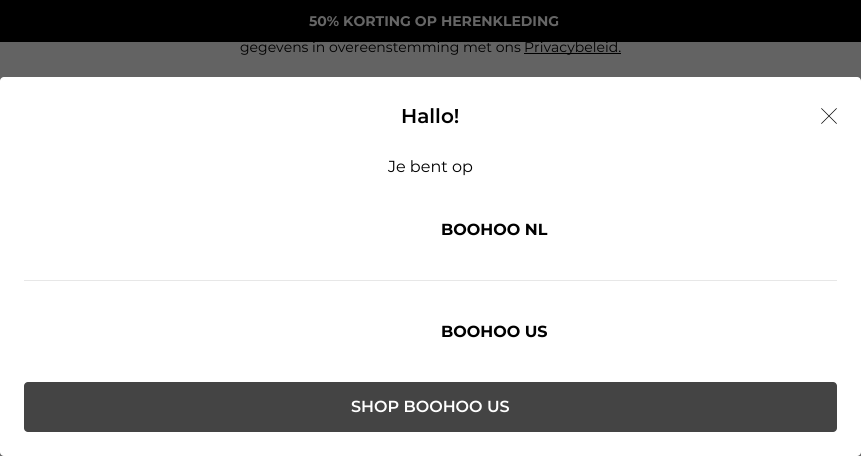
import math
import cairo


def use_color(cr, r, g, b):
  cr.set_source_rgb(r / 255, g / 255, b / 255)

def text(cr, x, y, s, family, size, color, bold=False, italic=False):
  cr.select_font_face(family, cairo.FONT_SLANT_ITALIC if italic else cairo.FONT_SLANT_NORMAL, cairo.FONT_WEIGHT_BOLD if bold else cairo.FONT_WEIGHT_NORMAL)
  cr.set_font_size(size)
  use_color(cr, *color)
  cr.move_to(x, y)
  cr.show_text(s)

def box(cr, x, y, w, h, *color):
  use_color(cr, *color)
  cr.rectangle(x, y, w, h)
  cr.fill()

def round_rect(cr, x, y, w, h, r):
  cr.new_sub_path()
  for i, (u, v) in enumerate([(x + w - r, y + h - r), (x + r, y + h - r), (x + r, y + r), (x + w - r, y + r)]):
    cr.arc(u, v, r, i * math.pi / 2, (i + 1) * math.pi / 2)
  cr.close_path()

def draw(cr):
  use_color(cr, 102, 102, 102)
  cr.paint()
  box(cr, 0, 0, 861, 42, 0, 0, 0)
  box(cr, 0, 42, 861, 39, 99, 99, 99)
  box(cr, 524, 53, 97, 1, 0, 0, 0)
  use_color(cr, 255, 255, 255)
  round_rect(cr, 0, 77, 861, 379, 4)
  cr.fill()
  cr.new_path()
  cr.move_to(836.5, 108.5)
  cr.line_to(821.5, 123.5)
  cr.move_to(821.5, 108.5)
  cr.line_to(836.5, 123.5)
  use_color(cr, 0, 0, 0)
  cr.set_line_width(0.7)
  cr.set_line_cap(cairo.LINE_CAP_ROUND)
  cr.stroke()
  box(cr, 24, 280, 813, 1, 231, 231, 231)
  use_color(cr, 68, 68, 68)
  round_rect(cr, 24, 382, 813, 50, 4)
  cr.fill()
  text(cr, 309, 26, "50% KORTING OP HERENKLEDING", "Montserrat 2 Thin", 14, (102, 102, 102))
  text(cr, 240, 52, "gegevens in overeenstemming met ons", "Montserrat Thin", 14, (0, 0, 0))
  text(cr, 524, 52, "Privacybeleid.", "Montserrat Thin", 14, (0, 0, 0))
  text(cr, 401, 123, "Hallo!", "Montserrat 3 Thin", 20, (0, 0, 0))
  text(cr, 388, 172, "Je bent op", "Montserrat Thin", 16, (0, 0, 0))
  text(cr, 441, 235, "BOOHOO NL", "Montserrat 2 Thin", 16, (0, 0, 0))
  text(cr, 441, 337, "BOOHOO US", "Montserrat 2 Thin", 16, (0, 0, 0))
  text(cr, 351, 412, "SHOP BOOHOO US", "Montserrat 3 Thin", 16, (255, 255, 255))


surface = cairo.ImageSurface(cairo.FORMAT_RGB24, 861, 456)
cr = cairo.Context(surface)
options = cairo.FontOptions()
options.set_hint_metrics(cairo.HINT_METRICS_OFF)
options.set_hint_style(cairo.HINT_STYLE_NONE)
cr.set_font_options(options)
cr.set_miter_limit(4)
draw(cr)
surface.write_to_png("out.png")
